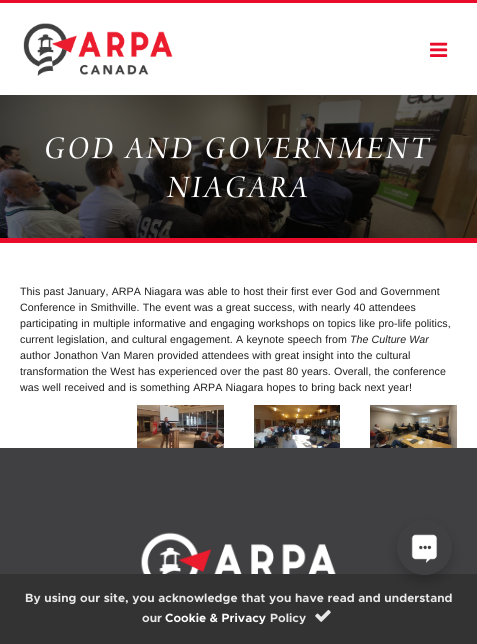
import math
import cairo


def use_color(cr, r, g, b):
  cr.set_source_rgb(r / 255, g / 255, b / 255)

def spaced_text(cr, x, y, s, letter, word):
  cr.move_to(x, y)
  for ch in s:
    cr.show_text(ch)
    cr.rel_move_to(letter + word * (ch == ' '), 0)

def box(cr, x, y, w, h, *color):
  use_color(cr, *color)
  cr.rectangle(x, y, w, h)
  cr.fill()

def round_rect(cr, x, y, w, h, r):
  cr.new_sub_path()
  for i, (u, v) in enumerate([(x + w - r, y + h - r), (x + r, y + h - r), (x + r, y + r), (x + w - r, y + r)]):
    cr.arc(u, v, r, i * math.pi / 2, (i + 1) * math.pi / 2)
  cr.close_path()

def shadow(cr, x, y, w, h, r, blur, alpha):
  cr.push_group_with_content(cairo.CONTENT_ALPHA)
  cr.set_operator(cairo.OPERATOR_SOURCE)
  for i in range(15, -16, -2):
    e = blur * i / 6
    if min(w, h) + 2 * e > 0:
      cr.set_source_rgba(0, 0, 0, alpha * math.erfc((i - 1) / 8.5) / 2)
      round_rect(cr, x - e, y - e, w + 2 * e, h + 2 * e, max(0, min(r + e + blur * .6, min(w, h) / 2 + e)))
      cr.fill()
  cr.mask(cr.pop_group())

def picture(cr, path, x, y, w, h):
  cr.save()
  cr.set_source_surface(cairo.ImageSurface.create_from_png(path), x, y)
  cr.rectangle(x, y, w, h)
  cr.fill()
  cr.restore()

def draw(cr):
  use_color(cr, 255, 255, 255)
  cr.paint()
  box(cr, 0, 0, 477, 3, 234, 11, 42)
  picture(cr, "img_01.png", 23, 23, 150, 53)
  picture(cr, "img_02.png", 430, 42, 18, 15)
  picture(cr, "img_03.png", 0, 95, 477, 143)
  box(cr, 0, 238, 477, 5, 234, 11, 42)
  picture(cr, "img_04.png", 137, 405, 87, 43)
  picture(cr, "img_05.png", 254, 405, 86, 43)
  picture(cr, "img_06.png", 370, 405, 87, 43)
  box(cr, 0, 448, 477, 126, 64, 64, 66)
  picture(cr, "img_07.png", 141, 532, 195, 42)
  box(cr, 0, 574, 477, 70, 51, 51, 51)
  use_color(cr, 0, 0, 0)
  shadow(cr, 397, 526, 55, 55, 27.5, 6, 0.2)
  use_color(cr, 64, 64, 66)
  cr.arc(424.5, 547.5, 27.5, 0, 2 * math.pi)
  cr.fill()
  picture(cr, "img_08.png", 411, 534, 27, 29)
  picture(cr, "img_09.png", 315, 609, 16, 13)
  cr.select_font_face("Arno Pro", cairo.FONT_SLANT_ITALIC)
  cr.set_font_size(33)
  use_color(cr, 255, 255, 255)
  spaced_text(cr, 44, 158, "GOD AND GOVERNMENT", 3, 1)
  spaced_text(cr, 167, 197, "NIAGARA", 3, 0)
  cr.select_font_face("Liberation Sans")
  cr.set_font_size(10.65)
  use_color(cr, 30, 30, 30)
  spaced_text(cr, 20, 295, "This past January, ARPA Niagara was able to host their first ever God and Government", 0.05, 0.25)
  spaced_text(cr, 20, 311, "Conference in Smithville. The event was a great success, with nearly 40 attendees", 0.05, 0.25)
  spaced_text(cr, 20, 327, "participating in multiple informative and engaging workshops on topics like pro-life politics,", 0.05, 0.25)
  spaced_text(cr, 20, 343, "current legislation, and cultural engagement. A keynote speech from", 0.05, 0.25)
  cr.select_font_face("Liberation Sans", cairo.FONT_SLANT_ITALIC)
  spaced_text(cr, 350, 343, "The Culture War", 0.05, 0)
  cr.select_font_face("Liberation Sans")
  spaced_text(cr, 20, 359, "author Jonathon Van Maren provided attendees with great insight into the cultural", 0.05, 0.25)
  spaced_text(cr, 20, 375, "transformation the West has experienced over the past 80 years. Overall, the conference", 0.05, 0.25)
  spaced_text(cr, 20, 391, "was well received and is something ARPA Niagara hopes to bring back next year!", 0.05, 0.25)
  cr.select_font_face("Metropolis", cairo.FONT_SLANT_NORMAL, cairo.FONT_WEIGHT_BOLD)
  cr.set_font_size(12)
  use_color(cr, 232, 232, 232)
  spaced_text(cr, 25, 602, "By using our site, you acknowledge that you have read and understand", 0.05, 0.25)
  spaced_text(cr, 142, 622, "our", 0.05, 0)
  use_color(cr, 255, 255, 255)
  spaced_text(cr, 165, 622, "Cookie & Privacy", 0.05, 0.25)
  use_color(cr, 232, 232, 232)
  spaced_text(cr, 270, 622, "Policy", 0.05, 0)


surface = cairo.ImageSurface(cairo.FORMAT_RGB24, 477, 644)
cr = cairo.Context(surface)
options = cairo.FontOptions()
options.set_hint_metrics(cairo.HINT_METRICS_OFF)
options.set_hint_style(cairo.HINT_STYLE_NONE)
cr.set_font_options(options)
cr.set_miter_limit(4)
draw(cr)
surface.write_to_png("out.png")
